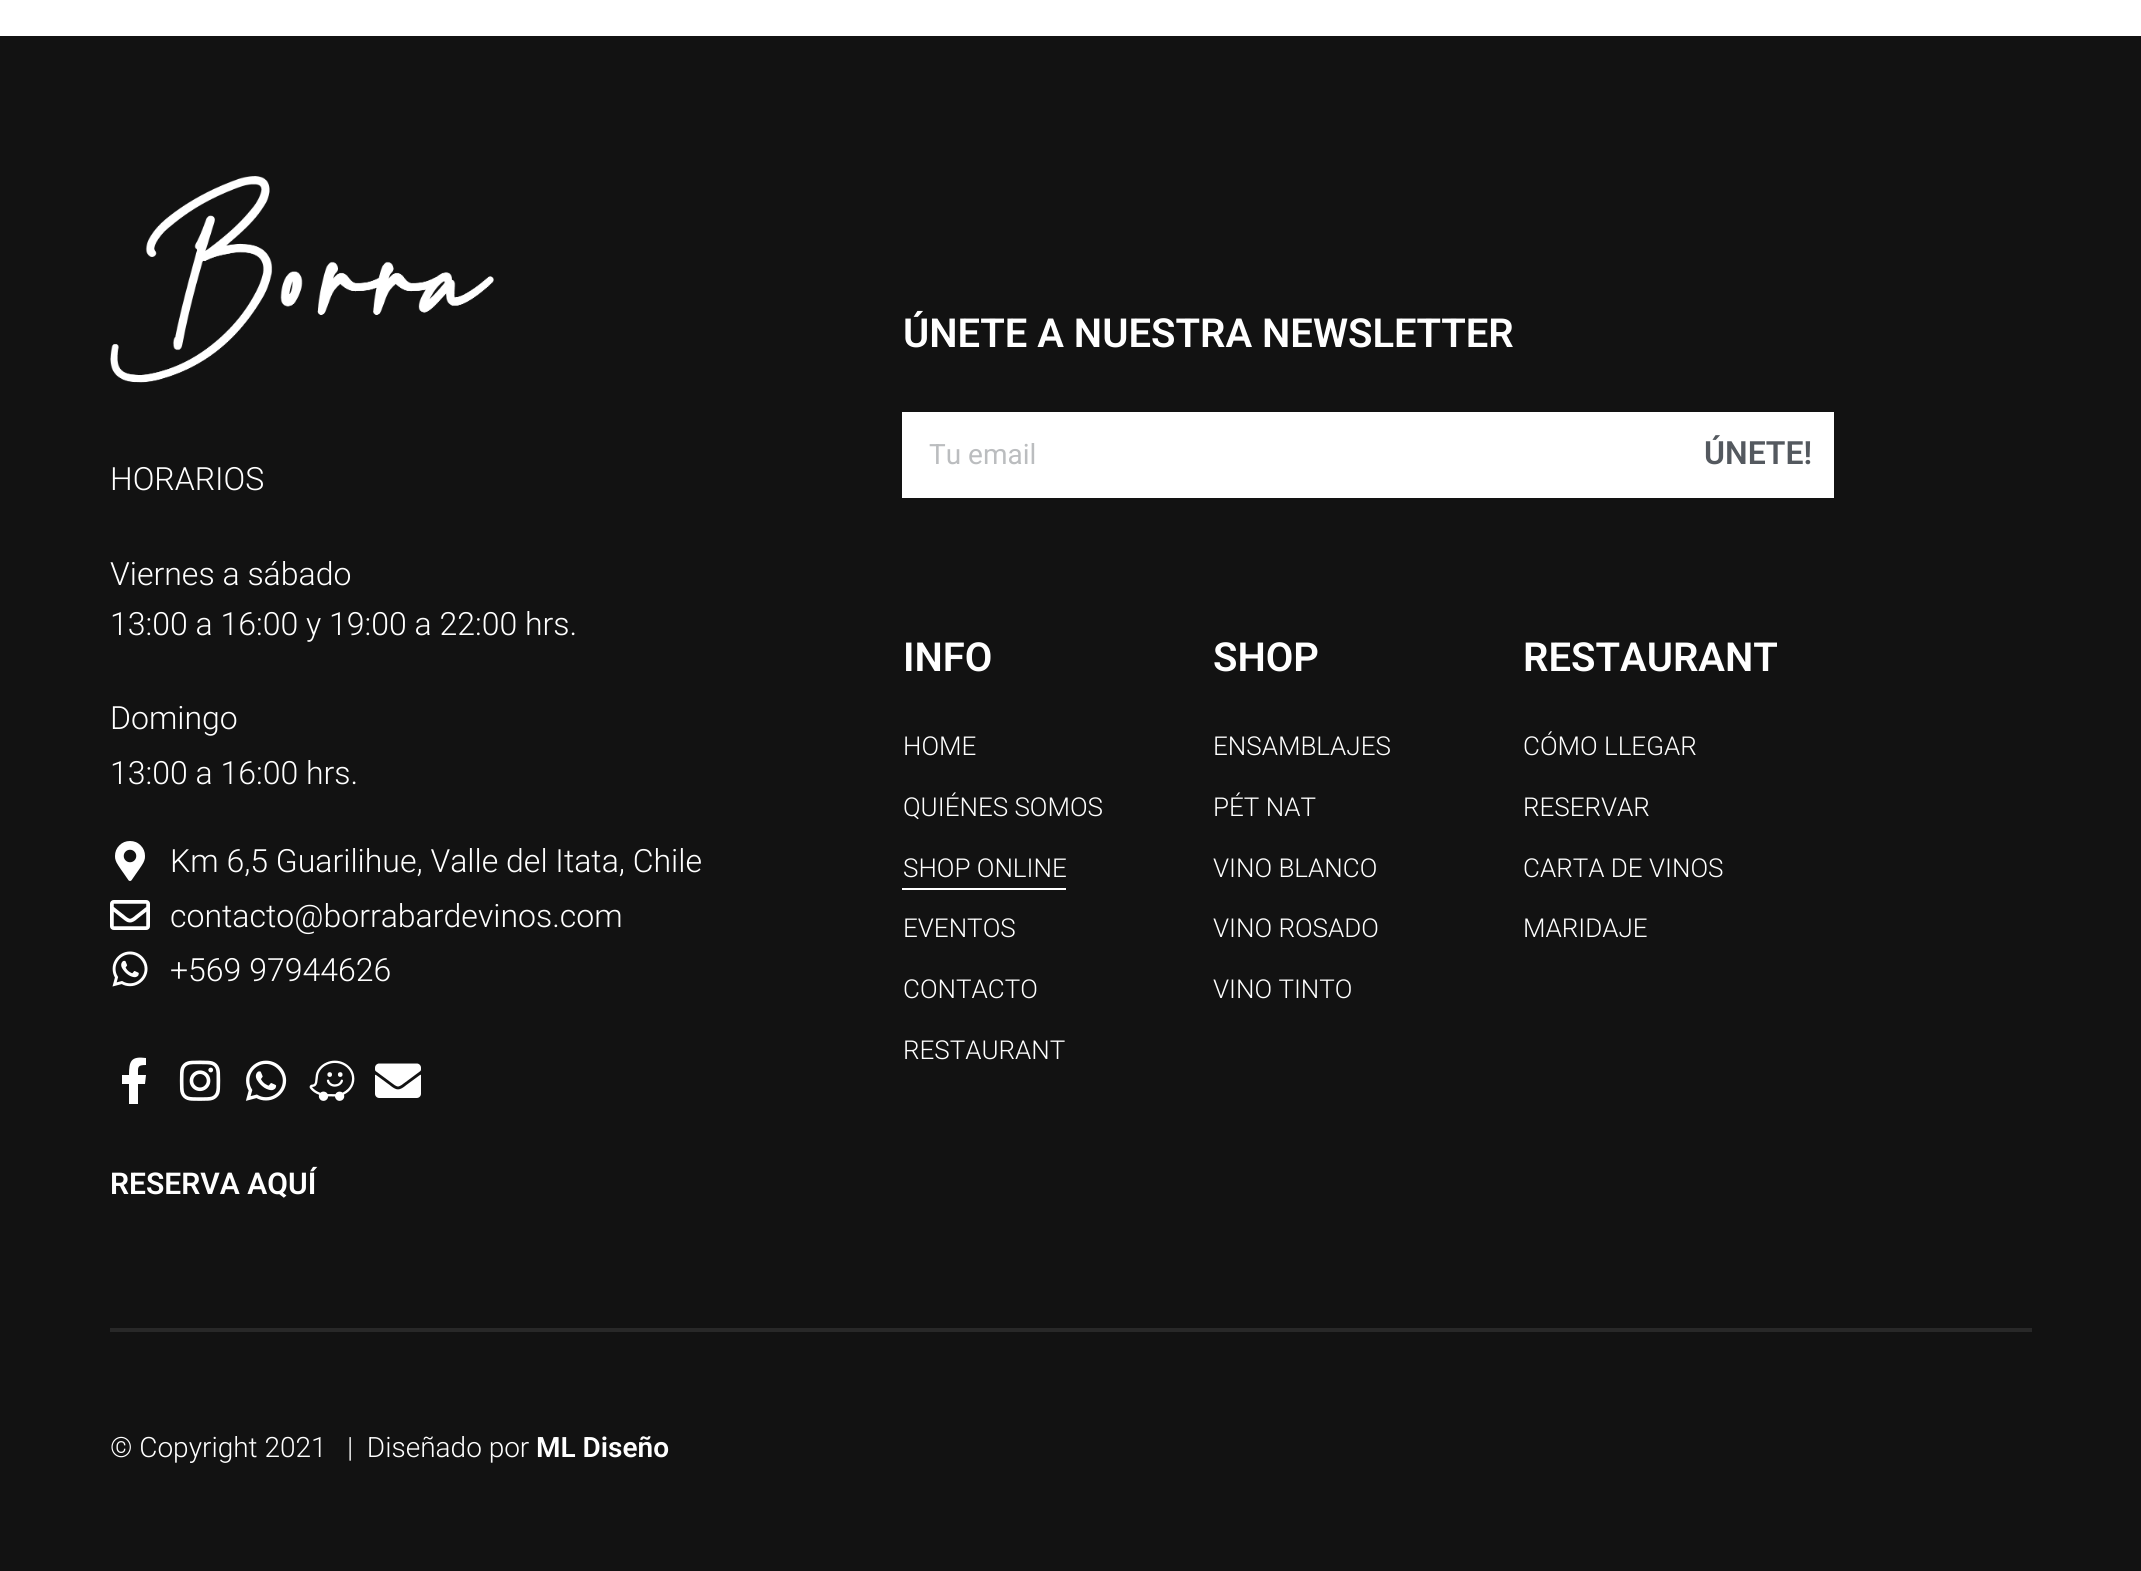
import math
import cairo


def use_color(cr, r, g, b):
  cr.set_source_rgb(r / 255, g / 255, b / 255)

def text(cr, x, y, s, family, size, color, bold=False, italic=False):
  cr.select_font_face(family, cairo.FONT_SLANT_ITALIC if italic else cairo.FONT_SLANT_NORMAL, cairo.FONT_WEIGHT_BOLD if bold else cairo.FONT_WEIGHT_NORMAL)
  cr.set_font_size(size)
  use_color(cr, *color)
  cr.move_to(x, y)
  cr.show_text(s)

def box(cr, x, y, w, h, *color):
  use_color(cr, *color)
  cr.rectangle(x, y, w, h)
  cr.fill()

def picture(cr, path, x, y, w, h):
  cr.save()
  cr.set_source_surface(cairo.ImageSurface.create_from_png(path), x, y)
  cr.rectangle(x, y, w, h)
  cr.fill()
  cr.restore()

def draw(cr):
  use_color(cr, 255, 255, 255)
  cr.paint()
  box(cr, 0, 36, 2141, 1535, 18, 18, 18)
  picture(cr, "img_01.png", 110, 176, 384, 207)
  picture(cr, "img_02.png", 115, 841, 30, 40)
  picture(cr, "img_03.png", 110, 900, 40, 30)
  picture(cr, "img_04.png", 112, 951, 36, 36)
  use_color(cr, 255, 255, 255)
  cr.new_path()
  cr.move_to(145, 1084)
  cr.line_to(138, 1084)
  cr.line_to(138, 1104)
  cr.line_to(129, 1104)
  cr.line_to(129, 1084)
  cr.line_to(122, 1084)
  cr.line_to(122, 1075)
  cr.line_to(129, 1075)
  cr.curve_to(129, 1061, 131, 1056, 146, 1058)
  cr.line_to(146, 1065)
  cr.curve_to(137, 1065, 138, 1067, 138, 1075)
  cr.line_to(146, 1075)
  cr.close_path()
  cr.fill()
  picture(cr, "img_05.png", 179, 1060, 42, 41)
  picture(cr, "img_06.png", 245, 1060, 42, 41)
  picture(cr, "img_07.png", 309, 1060, 46, 41)
  picture(cr, "img_08.png", 375, 1063, 46, 35)
  box(cr, 902, 412, 932, 86, 255, 255, 255)
  box(cr, 902, 888, 164, 2, 255, 255, 255)
  box(cr, 110, 1328, 1922, 4, 40, 40, 40)
  text(cr, 110, 490, "HORARIOS", "Roboto Light", 32, (255, 255, 255))
  text(cr, 110, 585, "Viernes a sábado", "Roboto Light", 32, (255, 255, 255))
  text(cr, 110, 635, "13:00 a 16:00 y 19:00 a 22:00 hrs.", "Roboto Light", 32, (255, 255, 255))
  text(cr, 110, 729, "Domingo", "Roboto Light", 32, (255, 255, 255))
  text(cr, 110, 784, "13:00 a 16:00 hrs.", "Roboto Light", 32, (255, 255, 255))
  text(cr, 170, 872, "Km 6,5 Guarilihue, Valle del Itata, Chile", "Roboto Light", 32, (255, 255, 255))
  text(cr, 170, 927, "contacto@borrabardevinos.com", "Roboto Light", 32, (255, 255, 255))
  text(cr, 170, 981, "+569 97944626", "Roboto Light", 32, (255, 255, 255))
  text(cr, 110, 1194, "RESERVA AQUÍ", "Roboto SemiBold", 30, (255, 255, 255))
  text(cr, 903, 347, "ÚNETE A NUESTRA NEWSLETTER", "Roboto SemiBold", 40, (255, 255, 255))
  text(cr, 929, 464, "Tu email", "Roboto", 28, (187, 189, 191))
  text(cr, 1704, 464, "ÚNETE!", "Roboto SemiBold", 32, (84, 89, 95))
  text(cr, 903, 671, "INFO", "Roboto SemiBold", 40, (255, 255, 255))
  text(cr, 903, 755, "HOME", "Roboto Light", 26, (255, 255, 255))
  text(cr, 903, 816, "QUIÉNES SOMOS", "Roboto Light", 26, (255, 255, 255))
  text(cr, 903, 877, "SHOP ONLINE", "Roboto Light", 26, (255, 255, 255))
  text(cr, 903, 937, "EVENTOS", "Roboto Light", 26, (255, 255, 255))
  text(cr, 903, 998, "CONTACTO", "Roboto Light", 26, (255, 255, 255))
  text(cr, 903, 1059, "RESTAURANT", "Roboto Light", 26, (255, 255, 255))
  text(cr, 1213, 671, "SHOP", "Roboto SemiBold", 40, (255, 255, 255))
  text(cr, 1213, 755, "ENSAMBLAJES", "Roboto Light", 26, (255, 255, 255))
  text(cr, 1213, 816, "PÉT NAT", "Roboto Light", 26, (255, 255, 255))
  text(cr, 1213, 877, "VINO BLANCO", "Roboto Light", 26, (255, 255, 255))
  text(cr, 1213, 937, "VINO ROSADO", "Roboto Light", 26, (255, 255, 255))
  text(cr, 1213, 998, "VINO TINTO", "Roboto Light", 26, (255, 255, 255))
  text(cr, 1523, 671, "RESTAURANT", "Roboto SemiBold", 40, (255, 255, 255))
  text(cr, 1523, 755, "CÓMO LLEGAR", "Roboto Light", 26, (255, 255, 255))
  text(cr, 1523, 816, "RESERVAR", "Roboto Light", 26, (255, 255, 255))
  text(cr, 1523, 877, "CARTA DE VINOS", "Roboto Light", 26, (255, 255, 255))
  text(cr, 1523, 937, "MARIDAJE", "Roboto Light", 26, (255, 255, 255))
  text(cr, 110, 1457, "© Copyright 2021   |  Diseñado por", "Roboto Light", 28, (255, 255, 255))
  text(cr, 536, 1457, "ML Diseño", "Roboto SemiBold", 28, (255, 255, 255))


surface = cairo.ImageSurface(cairo.FORMAT_RGB24, 2141, 1571)
cr = cairo.Context(surface)
options = cairo.FontOptions()
options.set_hint_metrics(cairo.HINT_METRICS_OFF)
options.set_hint_style(cairo.HINT_STYLE_NONE)
cr.set_font_options(options)
cr.set_miter_limit(4)
draw(cr)
surface.write_to_png("out.png")
